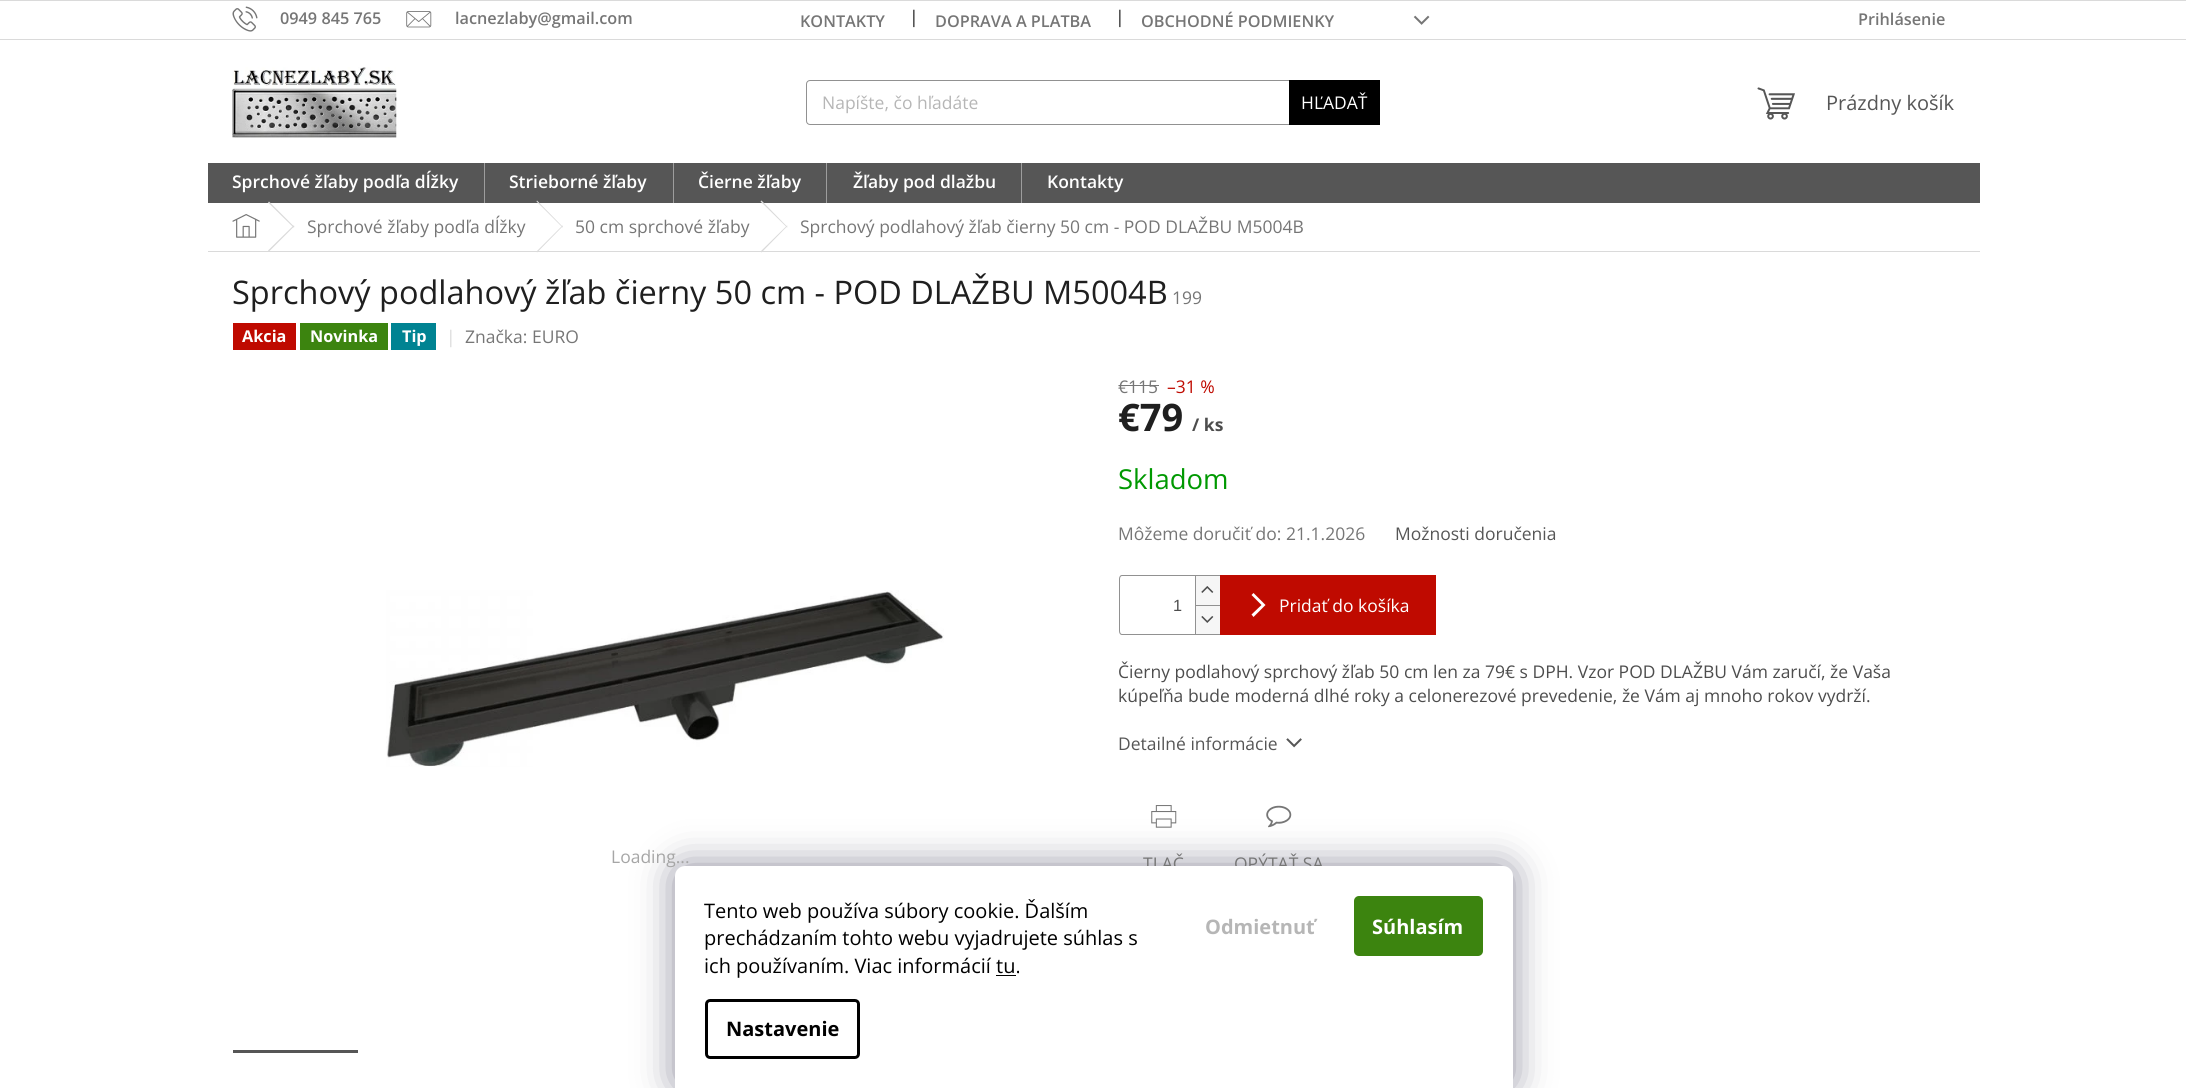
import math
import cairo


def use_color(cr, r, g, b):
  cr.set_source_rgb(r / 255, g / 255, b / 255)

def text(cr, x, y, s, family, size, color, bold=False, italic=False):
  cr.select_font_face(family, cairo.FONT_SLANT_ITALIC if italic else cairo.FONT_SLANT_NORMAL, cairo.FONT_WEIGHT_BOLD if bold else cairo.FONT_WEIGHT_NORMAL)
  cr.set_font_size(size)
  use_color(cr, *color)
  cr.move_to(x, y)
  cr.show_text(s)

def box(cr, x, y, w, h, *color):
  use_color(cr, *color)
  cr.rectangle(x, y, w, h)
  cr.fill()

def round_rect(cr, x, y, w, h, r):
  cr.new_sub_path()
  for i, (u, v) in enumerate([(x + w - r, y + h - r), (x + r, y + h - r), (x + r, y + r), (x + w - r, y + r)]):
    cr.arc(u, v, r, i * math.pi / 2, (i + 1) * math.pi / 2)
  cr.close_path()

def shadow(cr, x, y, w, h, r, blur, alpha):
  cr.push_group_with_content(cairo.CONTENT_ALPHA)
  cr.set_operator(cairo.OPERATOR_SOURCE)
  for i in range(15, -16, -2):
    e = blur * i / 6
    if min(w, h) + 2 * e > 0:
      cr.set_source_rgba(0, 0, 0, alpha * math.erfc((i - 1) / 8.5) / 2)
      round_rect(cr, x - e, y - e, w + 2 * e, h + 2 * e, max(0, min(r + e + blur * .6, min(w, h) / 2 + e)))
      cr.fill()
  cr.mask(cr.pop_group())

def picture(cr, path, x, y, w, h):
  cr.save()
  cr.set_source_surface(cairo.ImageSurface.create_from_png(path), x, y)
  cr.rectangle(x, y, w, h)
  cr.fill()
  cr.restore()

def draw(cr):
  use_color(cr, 255, 255, 255)
  cr.paint()
  box(cr, 0, 0, 2186, 1, 218, 218, 218)
  box(cr, 0, 39, 2186, 1, 218, 218, 218)
  picture(cr, "img_01.png", 232, 6, 26, 26)
  picture(cr, "img_02.png", 406, 11, 26, 17)
  picture(cr, "img_03.png", 1413, 15, 17, 10)
  picture(cr, "img_04.png", 232, 67, 165, 71)
  round_rect(cr, 806.5, 80.5, 573, 44, 3.5)
  use_color(cr, 145, 145, 145)
  cr.set_line_width(1)
  cr.stroke()
  box(cr, 1289, 80, 91, 45, 0, 0, 0)
  picture(cr, "img_05.png", 1757, 87, 38, 33)
  box(cr, 208, 163, 1772, 40, 86, 86, 86)
  box(cr, 484, 163, 1, 40, 157, 157, 157)
  box(cr, 673, 163, 1, 40, 157, 157, 157)
  box(cr, 826, 163, 1, 40, 157, 157, 157)
  box(cr, 1021, 163, 1, 40, 157, 157, 157)
  box(cr, 208, 251, 1772, 1, 218, 218, 218)
  picture(cr, "img_06.png", 232, 214, 28, 24)
  cr.new_path()
  cr.move_to(268, 202.5)
  cr.line_to(269, 201.5)
  cr.line_to(294.5, 227)
  cr.line_to(293.5, 227.5)
  cr.close_path()
  cr.fill()
  cr.new_path()
  cr.move_to(293.5, 225.5)
  cr.line_to(294.5, 226)
  cr.line_to(269, 251.5)
  cr.line_to(268, 250.5)
  cr.close_path()
  cr.fill()
  cr.new_path()
  cr.move_to(536.5, 201.5)
  cr.line_to(537, 200.5)
  cr.line_to(563, 227)
  cr.line_to(562.5, 227.5)
  cr.close_path()
  cr.fill()
  cr.new_path()
  cr.move_to(562.5, 225.5)
  cr.line_to(563, 226)
  cr.line_to(537, 252.5)
  cr.line_to(536.5, 251.5)
  cr.close_path()
  cr.fill()
  cr.new_path()
  cr.move_to(760.5, 201.5)
  cr.line_to(761.5, 200.5)
  cr.line_to(787.5, 227)
  cr.line_to(787, 227.5)
  cr.close_path()
  cr.fill()
  cr.new_path()
  cr.move_to(787, 225.5)
  cr.line_to(787.5, 226)
  cr.line_to(761.5, 252.5)
  cr.line_to(760.5, 251.5)
  cr.close_path()
  cr.fill()
  box(cr, 233, 323, 63, 27, 191, 10, 0)
  box(cr, 300, 323, 88, 27, 60, 132, 15)
  box(cr, 391, 323, 45, 27, 0, 131, 146)
  picture(cr, "img_07.png", 386, 590, 558, 177)
  box(cr, 233, 1050, 125, 3, 86, 86, 86)
  box(cr, 1119, 385, 40, 1, 118, 118, 118)
  use_color(cr, 145, 145, 145)
  cr.set_fill_rule(cairo.FILL_RULE_EVEN_ODD)
  cr.new_path()
  cr.move_to(1122, 575)
  cr.line_to(1220, 575)
  cr.line_to(1220, 635)
  cr.line_to(1122, 635)
  cr.curve_to(1120, 635, 1119, 633, 1119, 631)
  cr.line_to(1119, 579)
  cr.curve_to(1119, 577, 1120, 575, 1122, 575)
  cr.close_path()
  cr.move_to(1122, 576)
  cr.line_to(1220, 576)
  cr.line_to(1220, 634)
  cr.line_to(1122, 634)
  cr.curve_to(1121, 634, 1120, 633, 1120, 631)
  cr.line_to(1120, 579)
  cr.curve_to(1120, 577, 1121, 576, 1122, 576)
  cr.close_path()
  cr.fill()
  box(cr, 1196, 576, 24, 29, 246, 246, 246)
  box(cr, 1195, 576, 1, 29, 145, 145, 145)
  picture(cr, "img_08.png", 1201, 586, 13, 7)
  box(cr, 1196, 606, 24, 28, 246, 246, 246)
  box(cr, 1195, 605, 25, 1, 145, 145, 145)
  box(cr, 1195, 605, 1, 29, 145, 145, 145)
  picture(cr, "img_09.png", 1201, 616, 13, 7)
  box(cr, 1220, 575, 216, 60, 191, 10, 0)
  use_color(cr, 255, 255, 255)
  cr.set_fill_rule(cairo.FILL_RULE_WINDING)
  cr.new_path()
  cr.move_to(1253.5, 617)
  cr.line_to(1251.5, 614.5)
  cr.line_to(1261.5, 605)
  cr.line_to(1251.5, 595)
  cr.line_to(1253.5, 593)
  cr.line_to(1265.5, 605)
  cr.close_path()
  cr.fill()
  picture(cr, "img_10.png", 1286, 738, 16, 10)
  picture(cr, "img_11.png", 1151, 805, 26, 23)
  picture(cr, "img_12.png", 1266, 805, 26, 23)
  use_color(cr, 27, 25, 57)
  shadow(cr, 675, 866, 838, 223, 10, 19, 0.5)
  text(cr, 280, 24, "0949 845 765", "Open Sans SemiBold", 16.25, (118, 118, 118))
  text(cr, 455, 24, "lacnezlaby@gmail.com", "Open Sans SemiBold", 16.25, (118, 118, 118))
  text(cr, 800, 27, "KONTAKTY", "Open Sans SemiBold", 16.25, (118, 118, 118))
  text(cr, 909, 23, "|", "Open Sans SemiBold", 17.5, (77, 77, 77))
  text(cr, 935, 27, "DOPRAVA A PLATBA", "Open Sans SemiBold", 16.25, (118, 118, 118))
  text(cr, 1115, 23, "|", "Open Sans SemiBold", 17.5, (77, 77, 77))
  text(cr, 1141, 27, "OBCHODNÉ PODMIENKY", "Open Sans SemiBold", 16.25, (118, 118, 118))
  text(cr, 1858, 25, "Prihlásenie", "Open Sans SemiBold", 16.25, (118, 118, 118))
  text(cr, 822, 109, "Napíšte, čo hľadáte", "Open Sans", 17.5, (182, 182, 182))
  text(cr, 1301, 109, "HĽADAŤ", "Open Sans", 17.5, (255, 255, 255))
  text(cr, 1826, 110, "Prázdny košík", "Open Sans", 20, (86, 86, 86))
  text(cr, 232, 188, "Sprchové žľaby podľa dĺžky", "Open Sans SemiBold", 17.5, (255, 255, 255))
  text(cr, 509, 188, "Strieborné žľaby", "Open Sans SemiBold", 17.5, (255, 255, 255))
  text(cr, 698, 188, "Čierne žľaby", "Open Sans SemiBold", 17.5, (255, 255, 255))
  text(cr, 853, 188, "Žľaby pod dlažbu", "Open Sans SemiBold", 17.5, (255, 255, 255))
  text(cr, 1047, 188, "Kontakty", "Open Sans SemiBold", 17.5, (255, 255, 255))
  text(cr, 307, 233, "Sprchové žľaby podľa dĺžky", "Open Sans", 17.5, (118, 118, 118))
  text(cr, 575, 233, "50 cm sprchové žľaby", "Open Sans", 17.5, (118, 118, 118))
  text(cr, 800, 233, "Sprchový podlahový žľab čierny 50 cm - POD DLAŽBU M5004B", "Open Sans", 17.5, (118, 118, 118))
  text(cr, 232, 304, "Sprchový podlahový žľab čierny 50 cm - POD DLAŽBU M5004B", "Open Sans", 32.5, (31, 31, 31))
  text(cr, 1172, 304, "199", "Open Sans", 17.5, (118, 118, 118))
  text(cr, 242, 342, "Akcia", "Open Sans", 16.25, (255, 255, 255), bold=True)
  text(cr, 310, 342, "Novinka", "Open Sans", 16.25, (255, 255, 255), bold=True)
  text(cr, 402, 342, "Tip", "Open Sans", 16.25, (255, 255, 255), bold=True)
  text(cr, 446, 343, "|", "Open Sans", 17.5, (218, 218, 218))
  text(cr, 465, 343, "Značka: EURO", "Open Sans", 17.5, (118, 118, 118))
  text(cr, 611, 863, "Loading...", "Open Sans", 17.5, (166, 166, 166))
  text(cr, 1118, 393, "€115", "Open Sans", 17.5, (118, 118, 118))
  text(cr, 1167, 393, "–31 %", "Open Sans", 17.5, (191, 10, 0))
  text(cr, 1118, 431, "€79", "Open Sans", 38, (31, 31, 31), bold=True)
  text(cr, 1192, 431, "/ ks", "Open Sans", 17.5, (77, 77, 77), bold=True)
  text(cr, 1118, 489, "Skladom", "Open Sans", 27.5, (0, 153, 1))
  text(cr, 1118, 540, "Môžeme doručiť do: 21.1.2026", "Open Sans", 17.5, (118, 118, 118))
  text(cr, 1395, 540, "Možnosti doručenia", "Open Sans", 17.5, (86, 86, 86))
  text(cr, 1173, 611, "1", "Liberation Sans", 16.25, (77, 77, 77))
  text(cr, 1279, 612, "Pridať do košíka", "Open Sans", 17.5, (255, 255, 255))
  text(cr, 1118, 678, "Čierny podlahový sprchový žľab 50 cm len za 79€ s DPH. Vzor POD DLAŽBU Vám zaručí, že Vaša", "Open Sans", 17.5, (77, 77, 77))
  text(cr, 1118, 702, "kúpeľňa bude moderná dlhé roky a celonerezové prevedenie, že Vám aj mnoho rokov vydrží.", "Open Sans", 17.5, (77, 77, 77))
  text(cr, 1118, 750, "Detailné informácie", "Open Sans", 17.5, (86, 86, 86))
  text(cr, 1143, 870, "TLAČ", "Open Sans", 17.5, (118, 118, 118))
  text(cr, 1234, 870, "OPÝTAŤ SA", "Open Sans", 17.5, (118, 118, 118))
  use_color(cr, 255, 255, 255)
  cr.new_path()
  cr.move_to(685, 866)
  cr.line_to(1503, 866)
  cr.curve_to(1508.5, 866, 1513, 870.5, 1513, 876)
  cr.line_to(1513, 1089)
  cr.line_to(675, 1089)
  cr.line_to(675, 876)
  cr.curve_to(675, 870.5, 679.5, 866, 685, 866)
  cr.close_path()
  cr.fill()
  text(cr, 704, 918, "Tento web používa súbory cookie. Ďalším", "Open Sans", 20, (0, 0, 0))
  text(cr, 704, 945, "prechádzaním tohto webu vyjadrujete súhlas s", "Open Sans", 20, (0, 0, 0))
  text(cr, 704, 973, "ich používaním. Viac informácií tu.", "Open Sans", 20, (0, 0, 0))
  box(cr, 996, 975, 20, 1, 0, 0, 0)
  round_rect(cr, 706.5, 1000.5, 152, 57, 3.5)
  cr.set_line_width(3)
  cr.stroke()
  text(cr, 726, 1036, "Nastavenie", "Open Sans", 20, (0, 0, 0), bold=True)
  text(cr, 1205, 934, "Odmietnuť", "Open Sans", 20, (182, 182, 182), bold=True)
  use_color(cr, 60, 132, 15)
  round_rect(cr, 1354, 896, 129, 60, 5)
  cr.fill()
  text(cr, 1372, 934, "Súhlasím", "Open Sans", 20, (255, 255, 255), bold=True)


surface = cairo.ImageSurface(cairo.FORMAT_RGB24, 2204, 1088)
cr = cairo.Context(surface)
options = cairo.FontOptions()
options.set_hint_metrics(cairo.HINT_METRICS_OFF)
options.set_hint_style(cairo.HINT_STYLE_NONE)
cr.set_font_options(options)
cr.set_miter_limit(4)
draw(cr)
surface.write_to_png("out.png")
